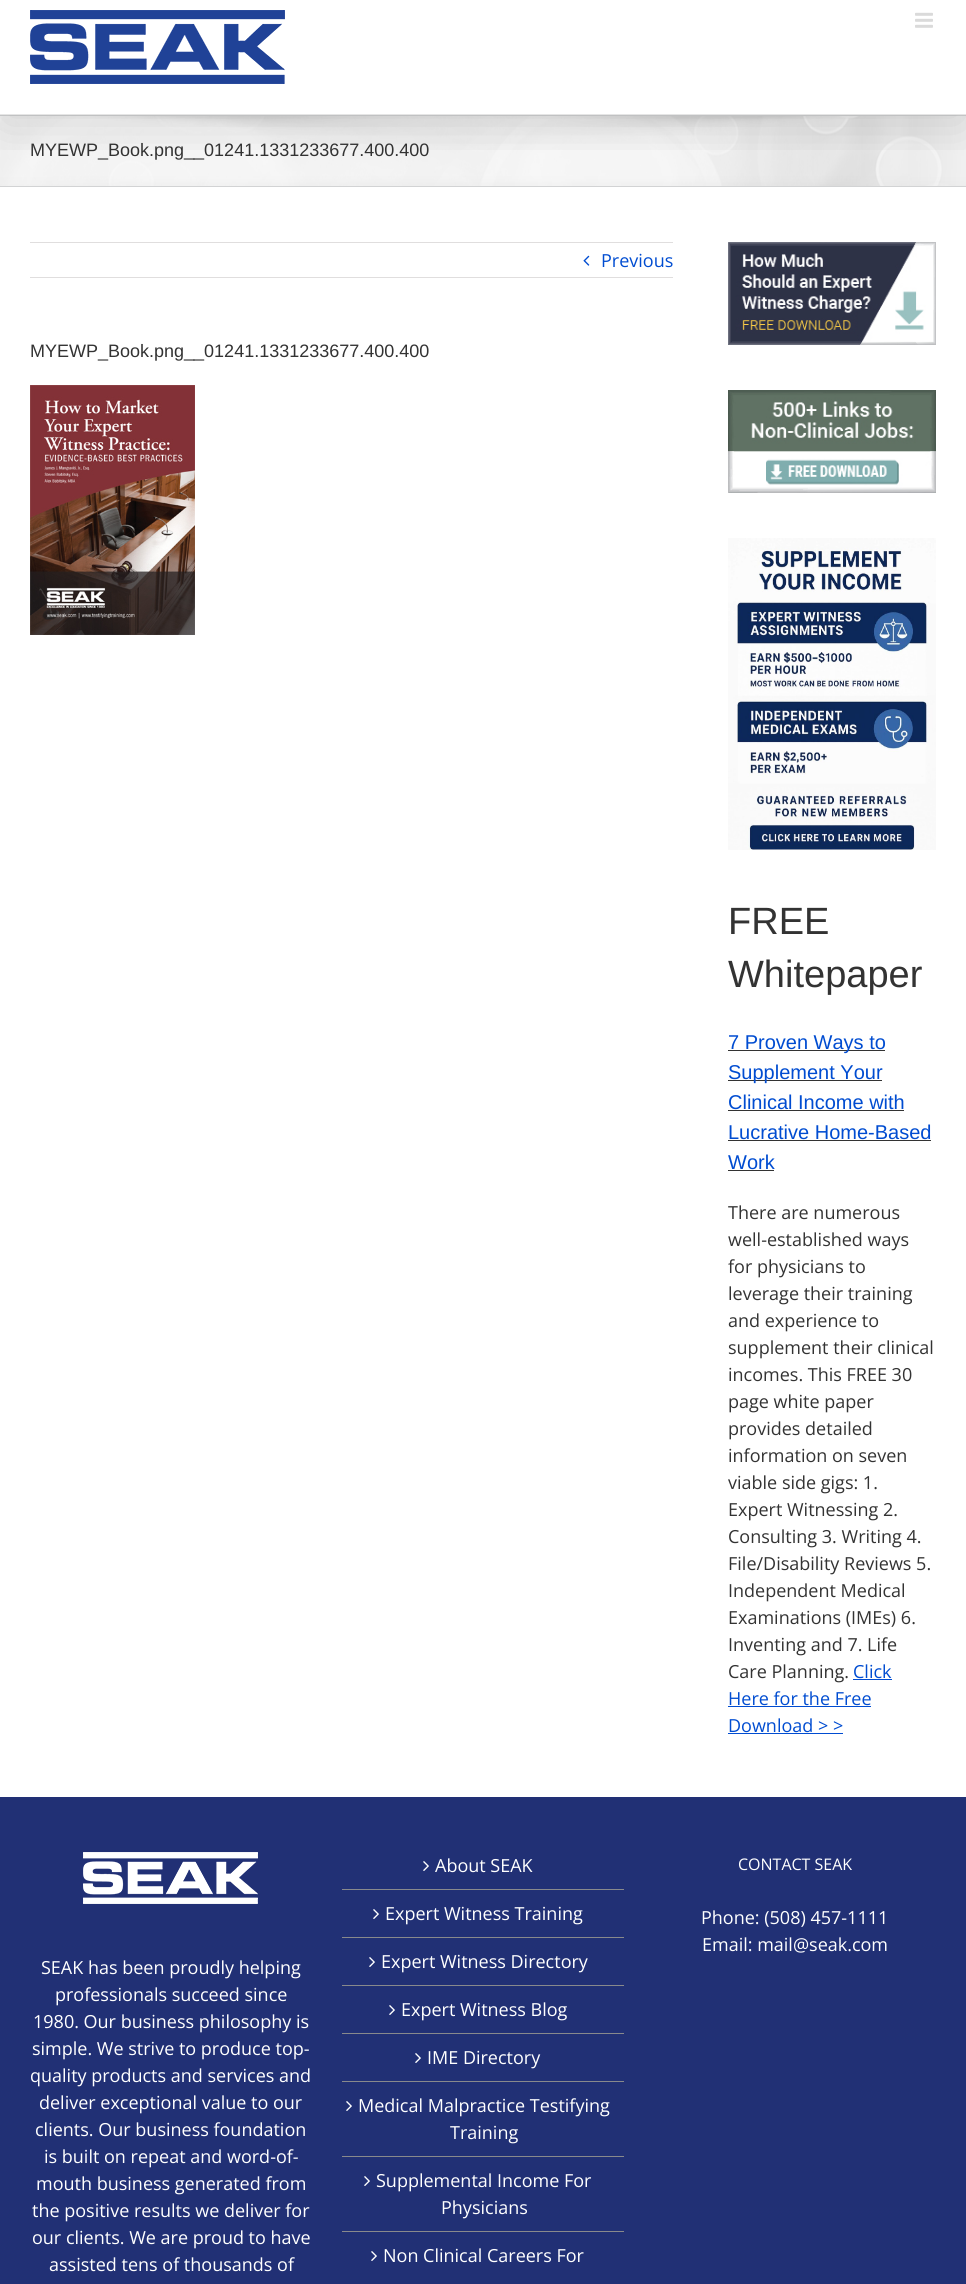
import math
import cairo


def use_color(cr, r, g, b):
  cr.set_source_rgb(r / 255, g / 255, b / 255)

def text(cr, x, y, s, family, size, color, bold=False, italic=False):
  cr.select_font_face(family, cairo.FONT_SLANT_ITALIC if italic else cairo.FONT_SLANT_NORMAL, cairo.FONT_WEIGHT_BOLD if bold else cairo.FONT_WEIGHT_NORMAL)
  cr.set_font_size(size)
  use_color(cr, *color)
  cr.move_to(x, y)
  cr.show_text(s)

def box(cr, x, y, w, h, *color):
  use_color(cr, *color)
  cr.rectangle(x, y, w, h)
  cr.fill()

def round_rect(cr, x, y, w, h, r):
  cr.new_sub_path()
  for i, (u, v) in enumerate([(x + w - r, y + h - r), (x + r, y + h - r), (x + r, y + r), (x + w - r, y + r)]):
    cr.arc(u, v, r, i * math.pi / 2, (i + 1) * math.pi / 2)
  cr.close_path()

def shadow(cr, x, y, w, h, r, blur, alpha):
  cr.push_group_with_content(cairo.CONTENT_ALPHA)
  cr.set_operator(cairo.OPERATOR_SOURCE)
  for i in range(15, -16, -2):
    e = blur * i / 6
    if min(w, h) + 2 * e > 0:
      cr.set_source_rgba(0, 0, 0, alpha * math.erfc((i - 1) / 8.5) / 2)
      round_rect(cr, x - e, y - e, w + 2 * e, h + 2 * e, max(0, min(r + e + blur * .6, min(w, h) / 2 + e)))
      cr.fill()
  cr.mask(cr.pop_group())

def picture(cr, path, x, y, w, h):
  cr.save()
  cr.set_source_surface(cairo.ImageSurface.create_from_png(path), x, y)
  cr.rectangle(x, y, w, h)
  cr.fill()
  cr.restore()

def draw(cr):
  use_color(cr, 255, 255, 255)
  cr.paint()
  box(cr, 0, 116, 966, 70, 246, 246, 246)
  picture(cr, "img_03.png", 0, 116, 966, 70)
  box(cr, 0, 115, 966, 1, 210, 211, 212)
  box(cr, 0, 186, 966, 1, 210, 211, 212)
  cr.save()
  cr.rectangle(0, 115, 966, 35)
  cr.clip()
  use_color(cr, 0, 0, 0)
  shadow(cr, 2, -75, 962, 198, 0, 25, 0.14)
  cr.restore()
  box(cr, 0, 114, 966, 1, 229, 229, 229)
  picture(cr, "img_01.png", 30, 10, 255, 74)
  picture(cr, "img_02.png", 915, 12, 18, 16)
  box(cr, 30, 242, 643, 1, 224, 222, 222)
  box(cr, 30, 277, 643, 1, 224, 222, 222)
  picture(cr, "img_04.png", 583, 255, 7, 11)
  picture(cr, "img_05.png", 30, 385, 165, 250)
  picture(cr, "img_06.png", 728, 242, 208, 103)
  picture(cr, "img_07.png", 728, 390, 208, 103)
  picture(cr, "img_08.png", 728, 538, 208, 312)
  box(cr, 728, 1050, 157, 1, 51, 51, 51)
  box(cr, 728, 1080, 154, 1, 51, 51, 51)
  box(cr, 728, 1110, 176, 1, 51, 51, 51)
  box(cr, 728, 1140, 203, 1, 51, 51, 51)
  box(cr, 728, 1170, 46, 1, 51, 51, 51)
  box(cr, 853, 1679, 39, 1, 0, 76, 209)
  box(cr, 728, 1706, 143, 1, 0, 76, 209)
  box(cr, 728, 1733, 115, 1, 0, 76, 209)
  box(cr, 0, 1797, 966, 487, 33, 48, 117)
  box(cr, 342, 1889, 282, 1, 136, 137, 140)
  picture(cr, "img_09.png", 423, 1861, 6, 10)
  box(cr, 342, 1937, 282, 1, 136, 137, 140)
  picture(cr, "img_09.png", 373, 1909, 6, 10)
  box(cr, 342, 1985, 282, 1, 136, 137, 140)
  picture(cr, "img_09.png", 369, 1957, 6, 10)
  box(cr, 342, 2033, 282, 1, 136, 137, 140)
  picture(cr, "img_09.png", 389, 2005, 6, 10)
  box(cr, 342, 2081, 282, 1, 136, 137, 140)
  picture(cr, "img_09.png", 415, 2053, 6, 10)
  box(cr, 342, 2156, 282, 1, 136, 137, 140)
  picture(cr, "img_09.png", 346, 2101, 6, 10)
  box(cr, 342, 2231, 282, 1, 136, 137, 140)
  picture(cr, "img_09.png", 364, 2176, 6, 10)
  picture(cr, "img_09.png", 371, 2251, 6, 10)
  picture(cr, "img_10.png", 83, 1852, 175, 52)
  text(cr, 30, 156, "MYEWP_Book.png__01241.1331233677.400.400", "Liberation Sans", 18, (51, 51, 51))
  text(cr, 601, 267, "Previous", "Open Sans", 18, (0, 76, 209))
  text(cr, 30, 357, "MYEWP_Book.png__01241.1331233677.400.400", "Liberation Sans", 18, (51, 51, 51))
  text(cr, 728, 934, "FREE", "Liberation Sans", 38, (51, 51, 51))
  text(cr, 728, 987, "Whitepaper", "Liberation Sans", 38, (51, 51, 51))
  text(cr, 728, 1049, "7 Proven Ways to", "Liberation Sans", 20, (0, 76, 209))
  text(cr, 728, 1079, "Supplement Your", "Liberation Sans", 20, (0, 76, 209))
  text(cr, 728, 1109, "Clinical Income with", "Liberation Sans", 20, (0, 76, 209))
  text(cr, 728, 1139, "Lucrative Home-Based", "Liberation Sans", 20, (0, 76, 209))
  text(cr, 728, 1169, "Work", "Liberation Sans", 20, (0, 76, 209))
  text(cr, 728, 1219, "There are numerous", "Open Sans", 18, (51, 51, 51))
  text(cr, 728, 1246, "well-established ways", "Open Sans", 18, (51, 51, 51))
  text(cr, 728, 1273, "for physicians to", "Open Sans", 18, (51, 51, 51))
  text(cr, 728, 1300, "leverage their training", "Open Sans", 18, (51, 51, 51))
  text(cr, 728, 1327, "and experience to", "Open Sans", 18, (51, 51, 51))
  text(cr, 728, 1354, "supplement their clinical", "Open Sans", 18, (51, 51, 51))
  text(cr, 728, 1381, "incomes. This FREE 30", "Open Sans", 18, (51, 51, 51))
  text(cr, 728, 1408, "page white paper", "Open Sans", 18, (51, 51, 51))
  text(cr, 728, 1435, "provides detailed", "Open Sans", 18, (51, 51, 51))
  text(cr, 728, 1462, "information on seven", "Open Sans", 18, (51, 51, 51))
  text(cr, 728, 1489, "viable side gigs: 1.", "Open Sans", 18, (51, 51, 51))
  text(cr, 728, 1516, "Expert Witnessing 2.", "Open Sans", 18, (51, 51, 51))
  text(cr, 728, 1543, "Consulting 3. Writing 4.", "Open Sans", 18, (51, 51, 51))
  text(cr, 728, 1570, "File/Disability Reviews 5.", "Open Sans", 18, (51, 51, 51))
  text(cr, 728, 1597, "Independent Medical", "Open Sans", 18, (51, 51, 51))
  text(cr, 728, 1624, "Examinations (IMEs) 6.", "Open Sans", 18, (51, 51, 51))
  text(cr, 728, 1651, "Inventing and 7. Life", "Open Sans", 18, (51, 51, 51))
  text(cr, 728, 1678, "Care Planning.", "Open Sans", 18, (51, 51, 51))
  text(cr, 853, 1678, "Click", "Open Sans", 18, (0, 76, 209))
  text(cr, 728, 1705, "Here for the Free", "Open Sans", 18, (0, 76, 209))
  text(cr, 728, 1732, "Download > >", "Open Sans", 18, (0, 76, 209))
  text(cr, 435, 1872, "About SEAK", "Open Sans", 18, (255, 255, 255))
  text(cr, 385, 1920, "Expert Witness Training", "Open Sans", 18, (255, 255, 255))
  text(cr, 381, 1968, "Expert Witness Directory", "Open Sans", 18, (255, 255, 255))
  text(cr, 401, 2016, "Expert Witness Blog", "Open Sans", 18, (255, 255, 255))
  text(cr, 427, 2064, "IME Directory", "Open Sans", 18, (255, 255, 255))
  text(cr, 358, 2112, "Medical Malpractice Testifying", "Open Sans", 18, (255, 255, 255))
  text(cr, 450, 2139, "Training", "Open Sans", 18, (255, 255, 255))
  text(cr, 376, 2187, "Supplemental Income For", "Open Sans", 18, (255, 255, 255))
  text(cr, 441, 2214, "Physicians", "Open Sans", 18, (255, 255, 255))
  text(cr, 383, 2262, "Non Clinical Careers For", "Open Sans", 18, (255, 255, 255))
  text(cr, 738, 1870, "CONTACT SEAK", "Open Sans", 16, (255, 255, 255))
  text(cr, 701, 1924, "Phone: (508) 457-1111", "Open Sans", 18, (255, 255, 255))
  text(cr, 702, 1951, "Email: mail@seak.com", "Open Sans", 18, (255, 255, 255))
  text(cr, 41, 1974, "SEAK has been proudly helping", "Open Sans", 18, (255, 255, 255))
  text(cr, 55, 2001, "professionals succeed since", "Open Sans", 18, (255, 255, 255))
  text(cr, 33, 2028, "1980. Our business philosophy is", "Open Sans", 18, (255, 255, 255))
  text(cr, 32, 2055, "simple. We strive to produce top-", "Open Sans", 18, (255, 255, 255))
  text(cr, 30, 2082, "quality products and services and", "Open Sans", 18, (255, 255, 255))
  text(cr, 39, 2109, "deliver exceptional value to our", "Open Sans", 18, (255, 255, 255))
  text(cr, 35, 2136, "clients. Our business foundation", "Open Sans", 18, (255, 255, 255))
  text(cr, 44, 2163, "is built on repeat and word-of-", "Open Sans", 18, (255, 255, 255))
  text(cr, 36, 2190, "mouth business generated from", "Open Sans", 18, (255, 255, 255))
  text(cr, 32, 2217, "the positive results we deliver for", "Open Sans", 18, (255, 255, 255))
  text(cr, 32, 2244, "our clients. We are proud to have", "Open Sans", 18, (255, 255, 255))
  text(cr, 49, 2271, "assisted tens of thousands of", "Open Sans", 18, (255, 255, 255))


surface = cairo.ImageSurface(cairo.FORMAT_RGB24, 966, 2284)
cr = cairo.Context(surface)
options = cairo.FontOptions()
options.set_hint_metrics(cairo.HINT_METRICS_OFF)
options.set_hint_style(cairo.HINT_STYLE_NONE)
cr.set_font_options(options)
cr.set_miter_limit(4)
draw(cr)
surface.write_to_png("out.png")
